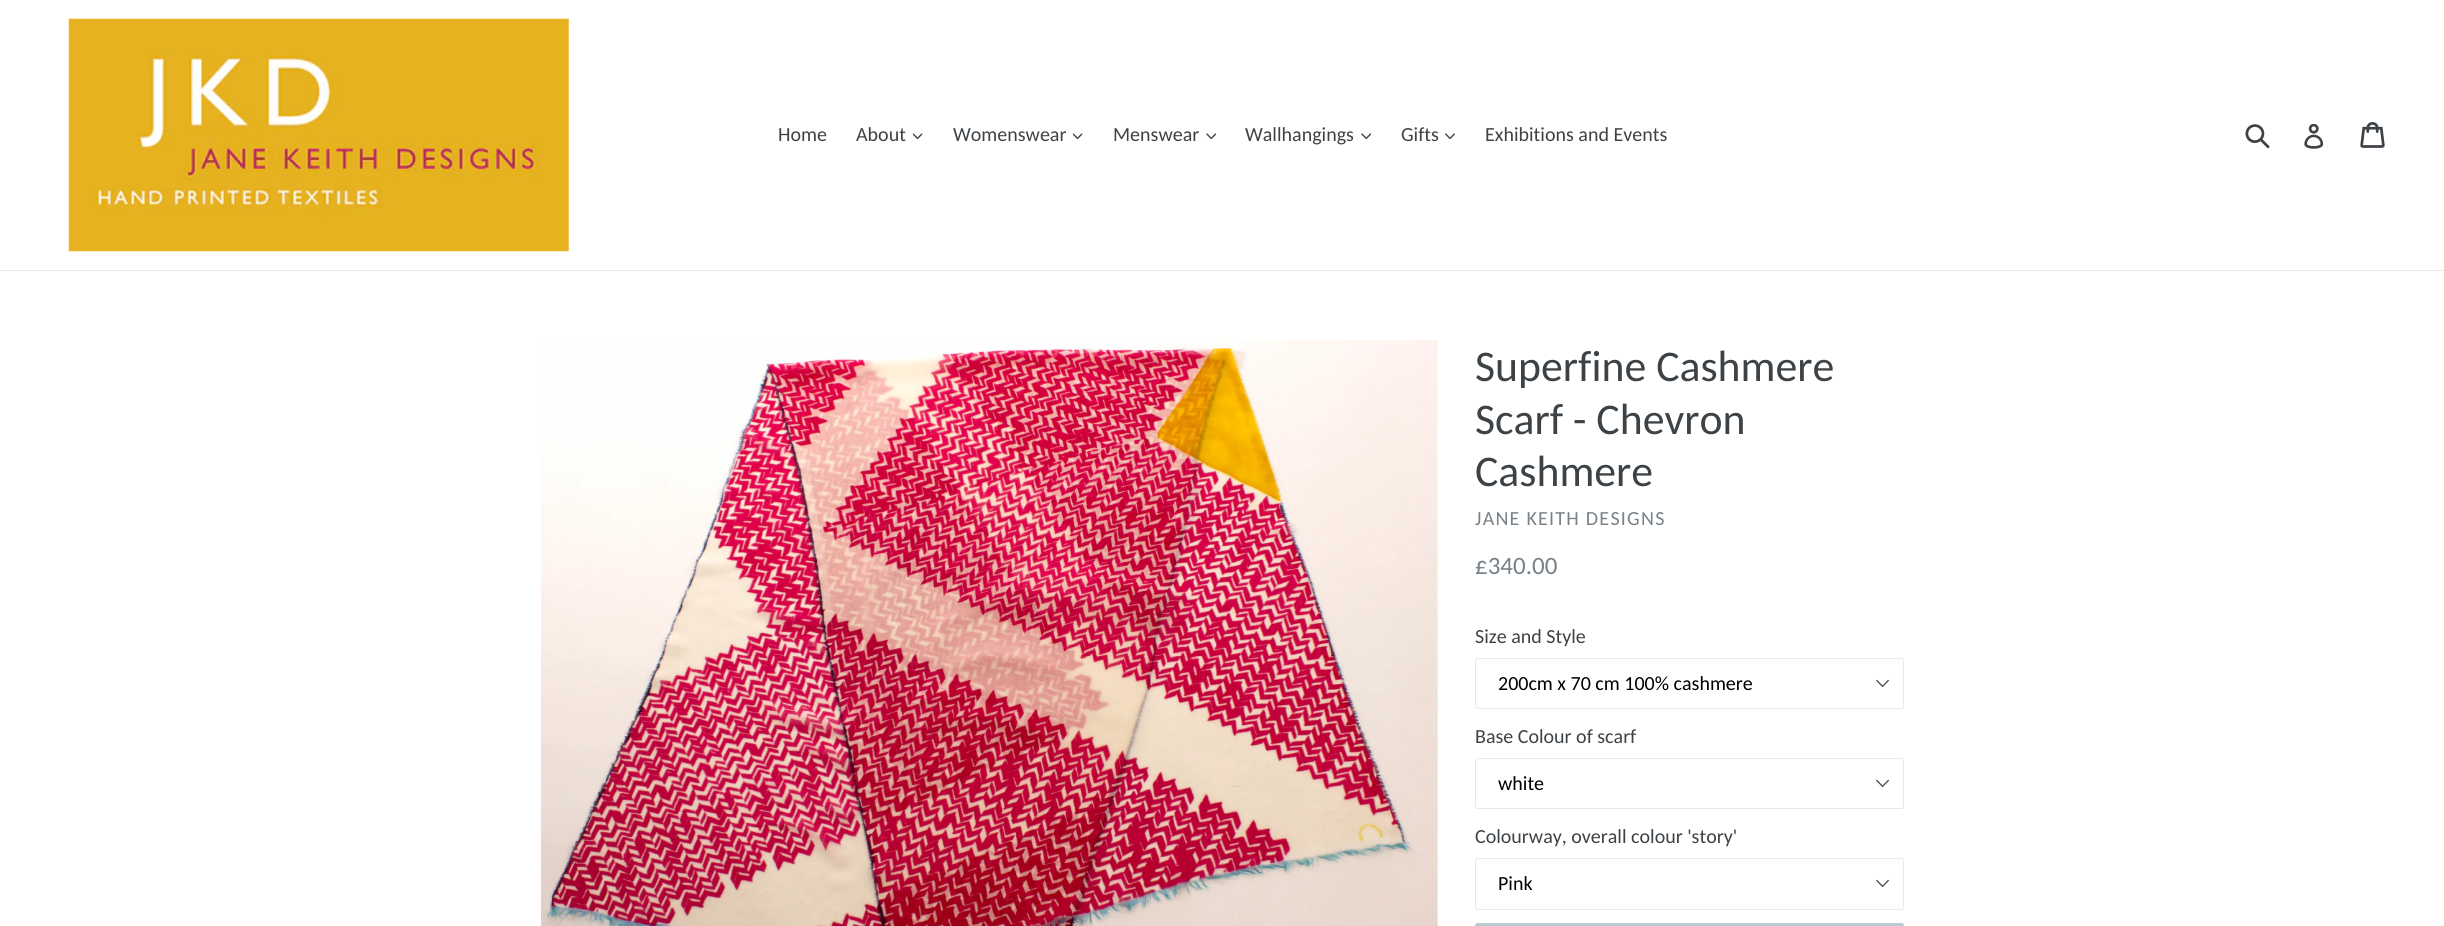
import math
import cairo


def use_color(cr, r, g, b):
  cr.set_source_rgb(r / 255, g / 255, b / 255)

def text(cr, x, y, s, family, size, color, bold=False, italic=False):
  cr.select_font_face(family, cairo.FONT_SLANT_ITALIC if italic else cairo.FONT_SLANT_NORMAL, cairo.FONT_WEIGHT_BOLD if bold else cairo.FONT_WEIGHT_NORMAL)
  cr.set_font_size(size)
  use_color(cr, *color)
  cr.move_to(x, y)
  cr.show_text(s)

def spaced_text(cr, x, y, s, letter, word):
  cr.move_to(x, y)
  for ch in s:
    cr.show_text(ch)
    cr.rel_move_to(letter + word * (ch == ' '), 0)

def box(cr, x, y, w, h, *color):
  use_color(cr, *color)
  cr.rectangle(x, y, w, h)
  cr.fill()

def round_rect(cr, x, y, w, h, r):
  cr.new_sub_path()
  for i, (u, v) in enumerate([(x + w - r, y + h - r), (x + r, y + h - r), (x + r, y + r), (x + w - r, y + r)]):
    cr.arc(u, v, r, i * math.pi / 2, (i + 1) * math.pi / 2)
  cr.close_path()

def picture(cr, path, x, y, w, h):
  cr.save()
  cr.set_source_surface(cairo.ImageSurface.create_from_png(path), x, y)
  cr.rectangle(x, y, w, h)
  cr.fill()
  cr.restore()

def draw(cr):
  use_color(cr, 255, 255, 255)
  cr.paint()
  box(cr, 0, 270, 2444, 1, 232, 233, 235)
  picture(cr, "img_01.png", 68, 18, 501, 234)
  picture(cr, "img_02.png", 913, 133, 10, 7)
  picture(cr, "img_02.png", 1073, 133, 10, 7)
  picture(cr, "img_03.png", 1206, 133, 10, 7)
  picture(cr, "img_03.png", 1361, 133, 10, 7)
  picture(cr, "img_04.png", 1445, 133, 10, 6)
  picture(cr, "img_05.png", 2245, 124, 25, 25)
  picture(cr, "img_06.png", 2304, 124, 20, 25)
  picture(cr, "img_07.png", 2360, 122, 25, 26)
  picture(cr, "img_08.png", 541, 340, 897, 586)
  picture(cr, "img_09.png", 1876, 679, 13, 9)
  round_rect(cr, 1475.5, 658.5, 428, 50, 2)
  cr.set_line_width(1)
  cr.stroke()
  picture(cr, "img_09.png", 1876, 779, 13, 9)
  round_rect(cr, 1475.5, 758.5, 428, 50, 2)
  cr.stroke()
  picture(cr, "img_09.png", 1876, 879, 13, 9)
  round_rect(cr, 1475.5, 858.5, 428, 51, 2)
  cr.stroke()
  use_color(cr, 187, 203, 212)
  round_rect(cr, 1475, 923, 429, 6, 2.5)
  cr.fill()
  text(cr, 778, 141, "Home", "Carlito", 20, (61, 66, 70))
  text(cr, 856, 141, "About", "Carlito", 20, (61, 66, 70))
  text(cr, 953, 141, "Womenswear", "Carlito", 20, (61, 66, 70))
  text(cr, 1113, 141, "Menswear", "Carlito", 20, (61, 66, 70))
  text(cr, 1245, 141, "Wallhangings", "Carlito", 20, (61, 66, 70))
  text(cr, 1401, 141, "Gifts", "Carlito", 20, (61, 66, 70))
  text(cr, 1485, 141, "Exhibitions and Events", "Carlito", 20, (61, 66, 70))
  text(cr, 1475, 381, "Superfine Cashmere", "Carlito", 43.75, (61, 66, 70))
  text(cr, 1475, 434, "Scarf - Chevron", "Carlito", 43.75, (61, 66, 70))
  text(cr, 1475, 486, "Cashmere", "Carlito", 43.75, (61, 66, 70))
  cr.set_font_size(20)
  use_color(cr, 120, 129, 136)
  spaced_text(cr, 1475, 525, "JANE KEITH DESIGNS", 1.25, 0)
  text(cr, 1475, 574, "£340.00", "Carlito", 25, (120, 129, 136))
  text(cr, 1475, 643, "Size and Style", "Carlito", 20, (61, 66, 70))
  text(cr, 1498, 690, "200cm x 70 cm 100% cashmere", "Carlito", 20, (0, 0, 0))
  text(cr, 1475, 743, "Base Colour of scarf", "Carlito", 20, (61, 66, 70))
  text(cr, 1498, 790, "white", "Carlito", 20, (0, 0, 0))
  text(cr, 1475, 843, "Colourway, overall colour 'story'", "Carlito", 20, (61, 66, 70))
  text(cr, 1498, 890, "Pink", "Carlito", 20, (0, 0, 0))


surface = cairo.ImageSurface(cairo.FORMAT_RGB24, 2444, 926)
cr = cairo.Context(surface)
options = cairo.FontOptions()
options.set_hint_metrics(cairo.HINT_METRICS_OFF)
options.set_hint_style(cairo.HINT_STYLE_NONE)
cr.set_font_options(options)
cr.set_miter_limit(4)
draw(cr)
surface.write_to_png("out.png")
